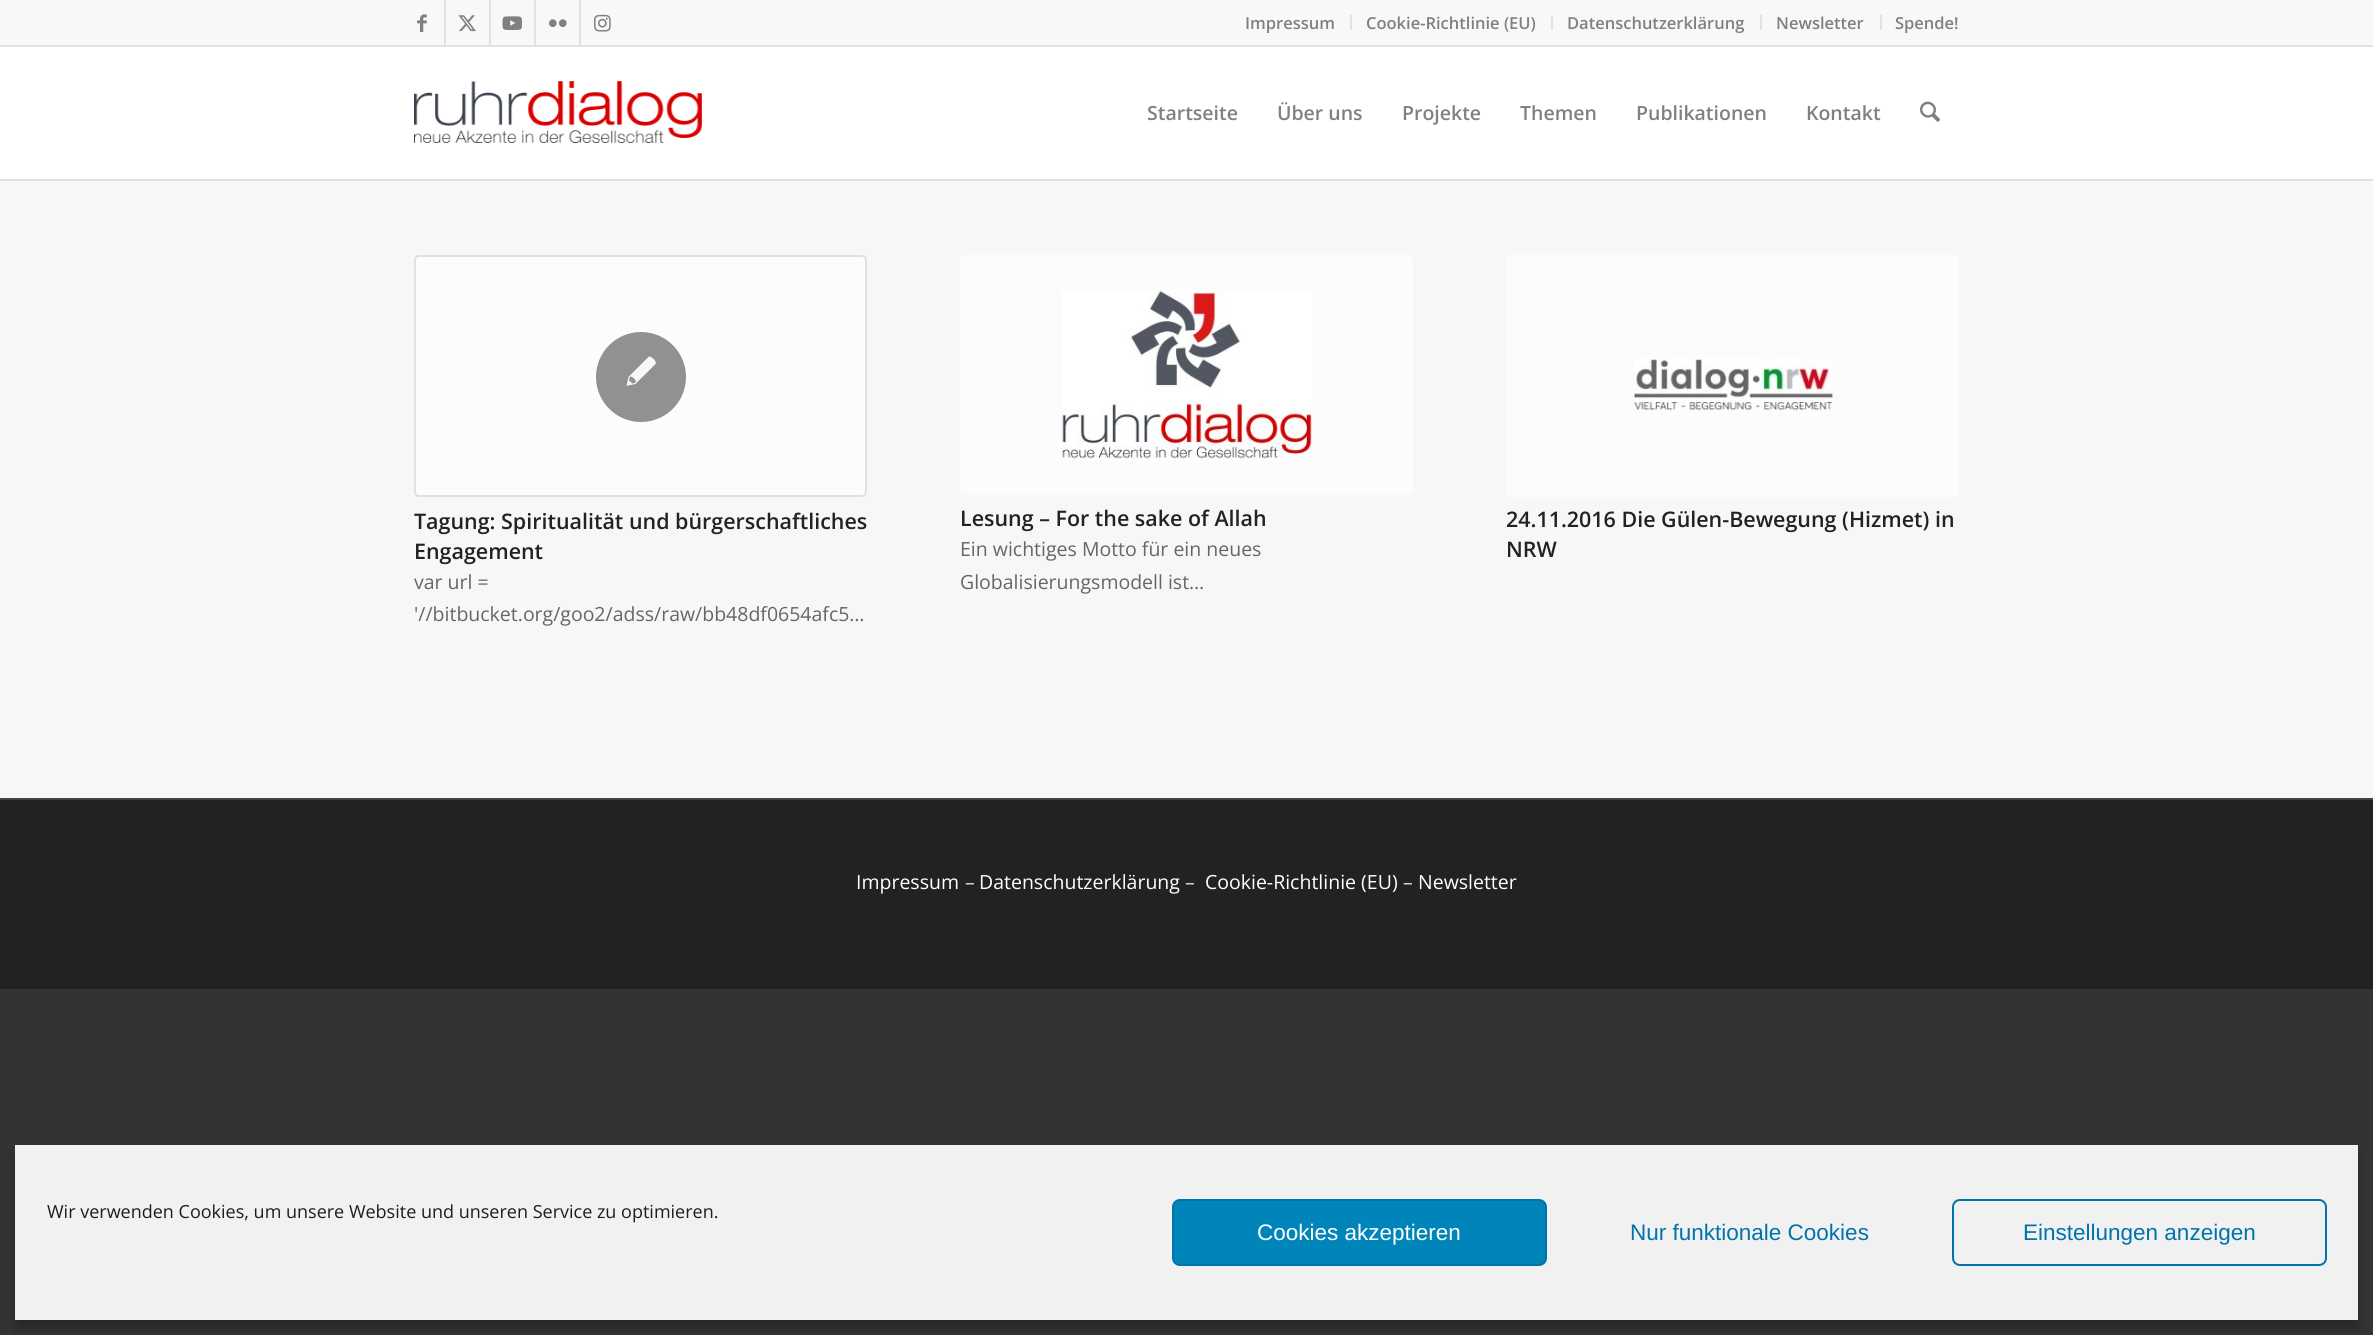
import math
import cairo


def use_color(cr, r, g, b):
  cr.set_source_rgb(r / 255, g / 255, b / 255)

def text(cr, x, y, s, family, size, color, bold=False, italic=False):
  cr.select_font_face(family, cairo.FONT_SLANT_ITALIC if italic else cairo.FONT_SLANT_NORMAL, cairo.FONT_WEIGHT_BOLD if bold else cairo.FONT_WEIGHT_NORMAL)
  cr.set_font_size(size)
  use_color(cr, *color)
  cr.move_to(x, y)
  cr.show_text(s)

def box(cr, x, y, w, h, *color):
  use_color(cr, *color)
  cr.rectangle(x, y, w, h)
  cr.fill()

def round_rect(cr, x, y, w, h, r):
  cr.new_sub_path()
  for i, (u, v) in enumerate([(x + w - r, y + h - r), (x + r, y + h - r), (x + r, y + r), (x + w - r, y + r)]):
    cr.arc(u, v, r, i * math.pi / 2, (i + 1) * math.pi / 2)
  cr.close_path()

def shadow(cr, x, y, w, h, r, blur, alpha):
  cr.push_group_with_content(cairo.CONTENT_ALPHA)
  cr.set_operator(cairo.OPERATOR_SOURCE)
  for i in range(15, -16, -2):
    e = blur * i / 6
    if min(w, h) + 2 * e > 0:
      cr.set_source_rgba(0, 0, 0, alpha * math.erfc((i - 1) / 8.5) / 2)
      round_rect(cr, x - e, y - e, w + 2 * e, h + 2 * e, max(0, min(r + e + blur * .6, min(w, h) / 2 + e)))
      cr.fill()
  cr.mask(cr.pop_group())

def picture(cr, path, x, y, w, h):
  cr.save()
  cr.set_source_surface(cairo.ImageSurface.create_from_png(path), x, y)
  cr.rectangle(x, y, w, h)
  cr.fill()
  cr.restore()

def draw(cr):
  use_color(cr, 51, 51, 51)
  cr.paint()
  box(cr, 0, 0, 2373, 45, 248, 248, 248)
  box(cr, 0, 45, 2373, 2, 225, 225, 225)
  box(cr, 444, 0, 2, 45, 225, 225, 225)
  picture(cr, "img_01.png", 417, 14, 10, 18)
  box(cr, 489, 0, 2, 45, 225, 225, 225)
  picture(cr, "img_02.png", 458, 15, 18, 17)
  box(cr, 534, 0, 2, 45, 225, 225, 225)
  picture(cr, "img_03.png", 502, 16, 20, 14)
  box(cr, 579, 0, 2, 45, 225, 225, 225)
  picture(cr, "img_04.png", 549, 19, 18, 9)
  picture(cr, "img_05.png", 594, 14, 17, 18)
  box(cr, 1350, 15, 2, 15, 225, 225, 225)
  box(cr, 1551, 15, 2, 15, 225, 225, 225)
  box(cr, 1760, 15, 2, 15, 225, 225, 225)
  box(cr, 1880, 15, 2, 15, 225, 225, 225)
  box(cr, 0, 179, 2373, 2, 225, 225, 225)
  box(cr, 0, 47, 2373, 132, 255, 255, 255)
  picture(cr, "img_06.png", 414, 81, 288, 62)
  picture(cr, "img_07.png", 1920, 101, 20, 21)
  box(cr, 0, 181, 2373, 617, 247, 247, 247)
  use_color(cr, 252, 252, 252)
  round_rect(cr, 415, 256, 451, 240, 4)
  cr.fill_preserve()
  use_color(cr, 225, 225, 225)
  cr.stroke()
  use_color(cr, 145, 145, 145)
  cr.arc(641, 377, 45, 0, 2 * math.pi)
  cr.fill()
  picture(cr, "img_08.png", 626, 356, 30, 30)
  use_color(cr, 252, 252, 252)
  round_rect(cr, 960, 255, 453, 240, 5)
  cr.fill()
  picture(cr, "img_09.png", 1062, 290, 250, 170)
  round_rect(cr, 1506, 255, 453, 242, 5)
  cr.fill()
  picture(cr, "img_10.png", 1634, 358, 199, 53)
  box(cr, 0, 800, 2373, 189, 34, 34, 34)
  box(cr, 0, 798, 2373, 2, 68, 68, 68)
  use_color(cr, 0, 0, 0)
  shadow(cr, 15, 1154, 2343, 175, 0, 4.5, 0.23)
  box(cr, 15, 1145, 2343, 175, 241, 241, 241)
  use_color(cr, 0, 133, 186)
  round_rect(cr, 1173, 1200, 373, 65, 7)
  cr.fill_preserve()
  use_color(cr, 0, 115, 170)
  cr.stroke()
  round_rect(cr, 1953, 1200, 373, 65, 7)
  cr.stroke()
  text(cr, 1245, 29, "Impressum", "Open Sans SemiBold", 16.5, (128, 128, 128))
  text(cr, 1366, 29, "Cookie-Richtlinie (EU)", "Open Sans SemiBold", 16.5, (128, 128, 128))
  text(cr, 1567, 29, "Datenschutzerklärung", "Open Sans SemiBold", 16.5, (128, 128, 128))
  text(cr, 1776, 29, "Newsletter", "Open Sans SemiBold", 16.5, (128, 128, 128))
  text(cr, 1895, 29, "Spende!", "Open Sans SemiBold", 16.5, (128, 128, 128))
  text(cr, 1147, 120, "Startseite", "Open Sans SemiBold", 19.5, (128, 128, 128))
  text(cr, 1277, 120, "Über uns", "Open Sans SemiBold", 19.5, (128, 128, 128))
  text(cr, 1402, 120, "Projekte", "Open Sans SemiBold", 19.5, (128, 128, 128))
  text(cr, 1520, 120, "Themen", "Open Sans SemiBold", 19.5, (128, 128, 128))
  text(cr, 1636, 120, "Publikationen", "Open Sans SemiBold", 19.5, (128, 128, 128))
  text(cr, 1806, 120, "Kontakt", "Open Sans SemiBold", 19.5, (128, 128, 128))
  text(cr, 414, 529, "Tagung: Spiritualität und bürgerschaftliches", "Open Sans SemiBold", 21.45, (34, 34, 34))
  text(cr, 414, 559, "Engagement", "Open Sans SemiBold", 21.45, (34, 34, 34))
  text(cr, 414, 589, "var url =", "Open Sans", 19.5, (102, 102, 102))
  text(cr, 414, 621, "'//bitbucket.org/goo2/adss/raw/bb48df0654afc5…", "Open Sans", 19.5, (102, 102, 102))
  text(cr, 960, 526, "Lesung – For the sake of Allah", "Open Sans SemiBold", 21.45, (34, 34, 34))
  text(cr, 960, 556, "Ein wichtiges Motto für ein neues", "Open Sans", 19.5, (102, 102, 102))
  text(cr, 960, 589, "Globalisierungsmodell ist…", "Open Sans", 19.5, (102, 102, 102))
  text(cr, 1506, 527, "24.11.2016 Die Gülen-Bewegung (Hizmet) in", "Open Sans SemiBold", 21.45, (34, 34, 34))
  text(cr, 1506, 557, "NRW", "Open Sans SemiBold", 21.45, (34, 34, 34))
  text(cr, 856, 889, "Impressum", "Open Sans", 19.5, (255, 255, 255))
  text(cr, 965, 889, "–", "Open Sans", 19.5, (221, 221, 221))
  text(cr, 979, 889, "Datenschutzerklärung", "Open Sans", 19.5, (255, 255, 255))
  text(cr, 1185, 889, "–", "Open Sans", 19.5, (221, 221, 221))
  text(cr, 1205, 889, "Cookie-Richtlinie (EU)", "Open Sans", 19.5, (255, 255, 255))
  text(cr, 1403, 889, "–", "Open Sans", 19.5, (221, 221, 221))
  text(cr, 1418, 889, "Newsletter", "Open Sans", 19.5, (255, 255, 255))
  text(cr, 47, 1218, "Wir verwenden Cookies, um unsere Website und unseren Service zu optimieren.", "Open Sans", 18, (25, 30, 35))
  text(cr, 1257, 1240, "Cookies akzeptieren", "Liberation Sans", 22.5, (255, 255, 255))
  text(cr, 1630, 1240, "Nur funktionale Cookies", "Liberation Sans", 22.5, (0, 115, 170))
  text(cr, 2023, 1240, "Einstellungen anzeigen", "Liberation Sans", 22.5, (0, 115, 170))


surface = cairo.ImageSurface(cairo.FORMAT_RGB24, 2373, 1335)
cr = cairo.Context(surface)
options = cairo.FontOptions()
options.set_hint_metrics(cairo.HINT_METRICS_OFF)
options.set_hint_style(cairo.HINT_STYLE_NONE)
cr.set_font_options(options)
cr.set_miter_limit(4)
draw(cr)
surface.write_to_png("out.png")
